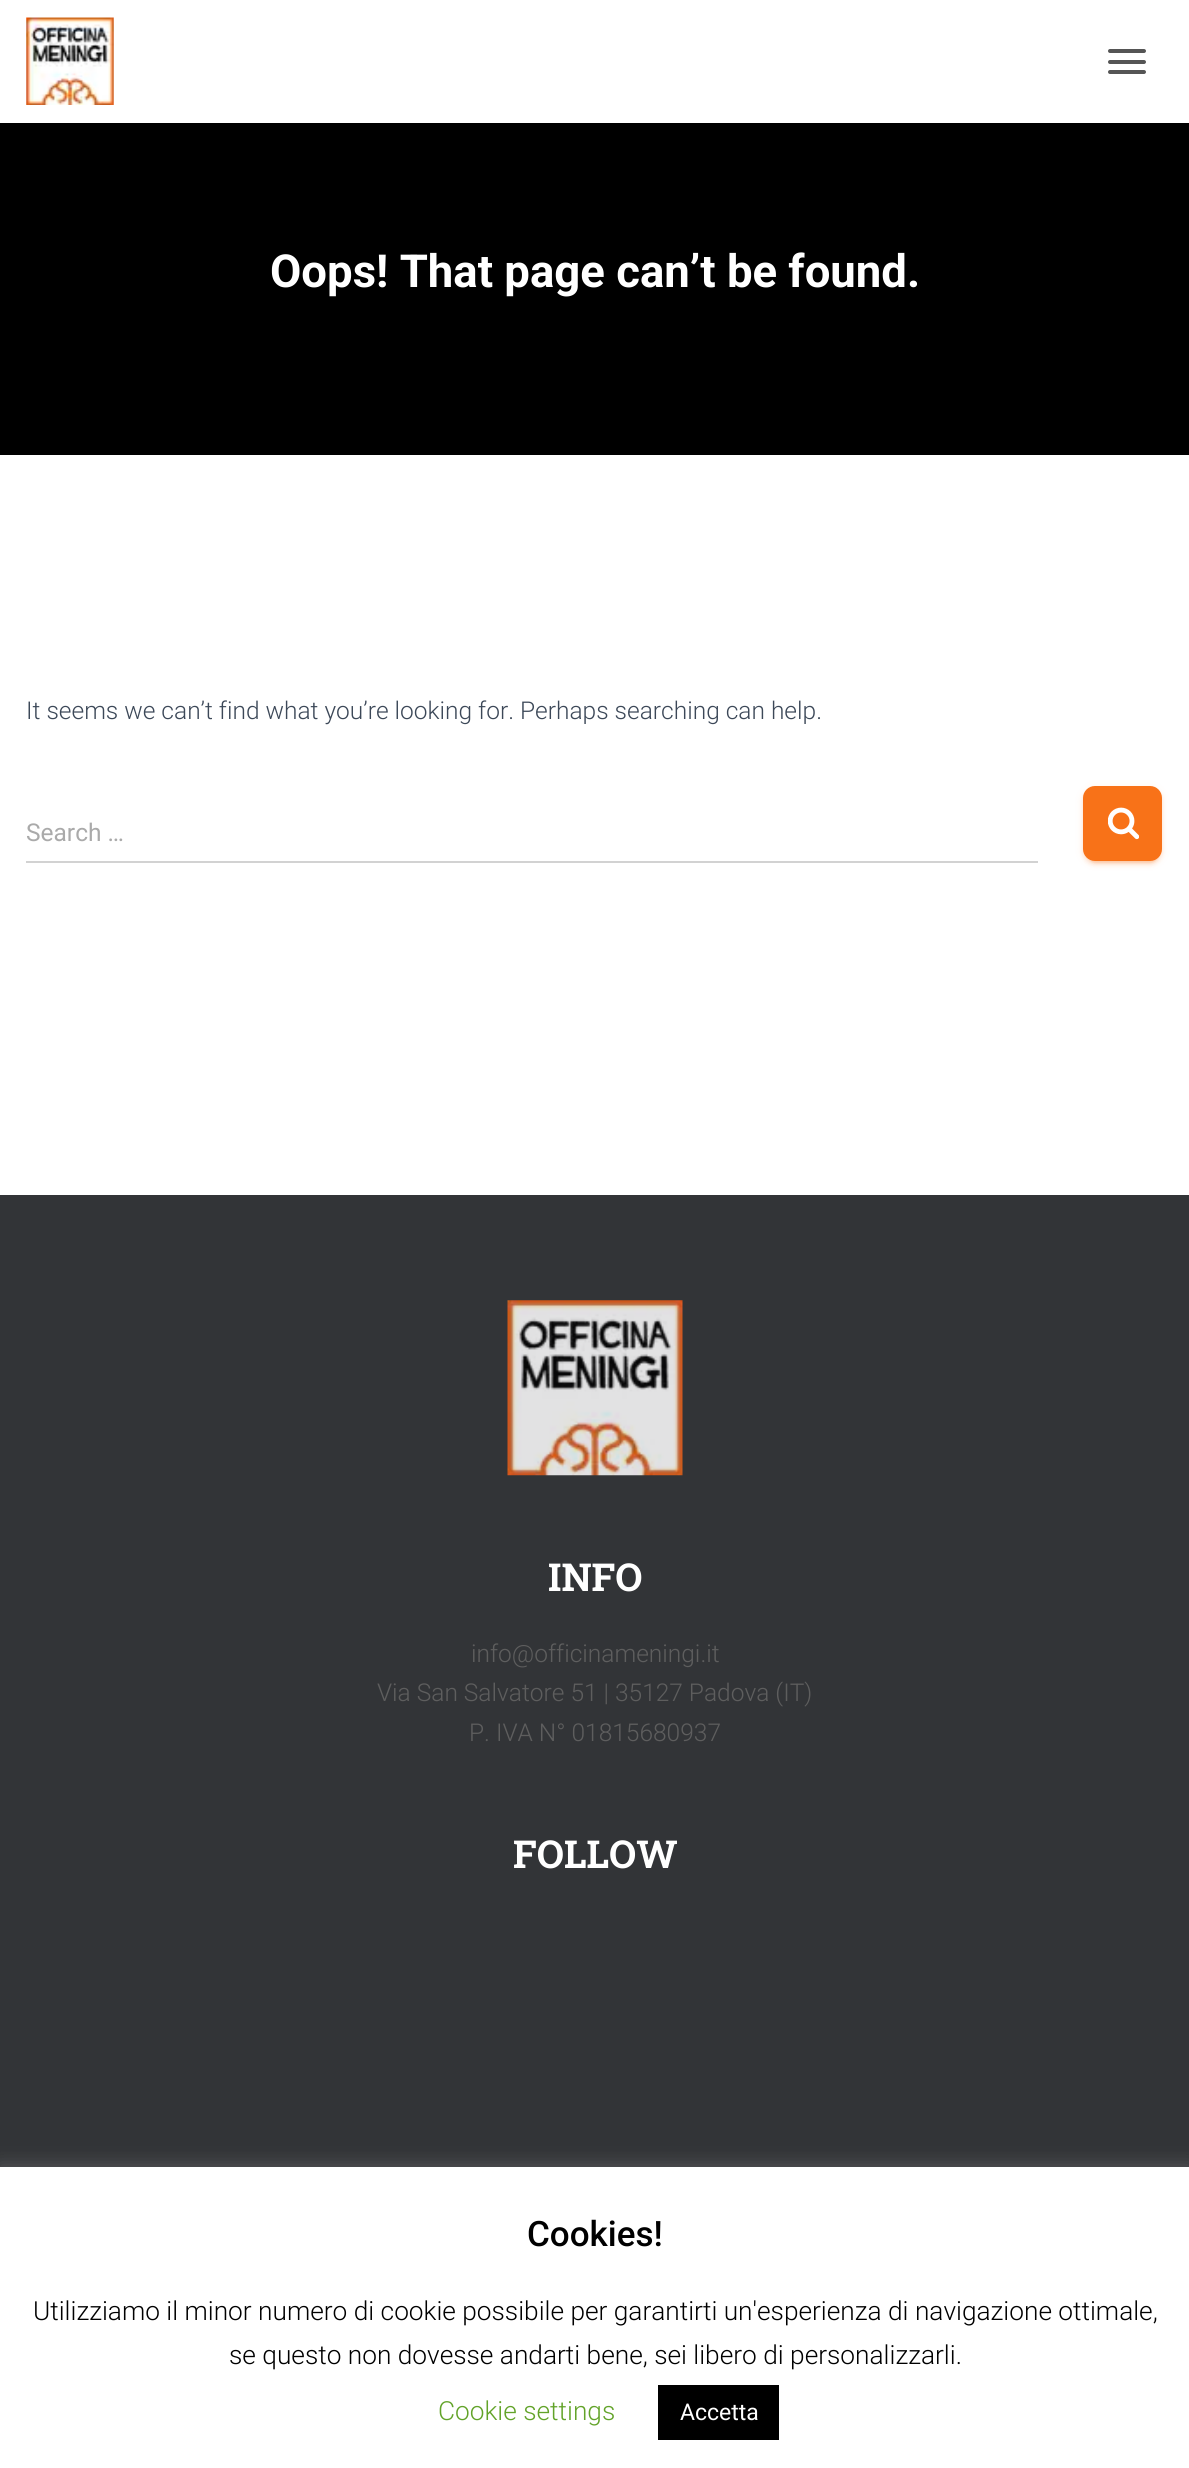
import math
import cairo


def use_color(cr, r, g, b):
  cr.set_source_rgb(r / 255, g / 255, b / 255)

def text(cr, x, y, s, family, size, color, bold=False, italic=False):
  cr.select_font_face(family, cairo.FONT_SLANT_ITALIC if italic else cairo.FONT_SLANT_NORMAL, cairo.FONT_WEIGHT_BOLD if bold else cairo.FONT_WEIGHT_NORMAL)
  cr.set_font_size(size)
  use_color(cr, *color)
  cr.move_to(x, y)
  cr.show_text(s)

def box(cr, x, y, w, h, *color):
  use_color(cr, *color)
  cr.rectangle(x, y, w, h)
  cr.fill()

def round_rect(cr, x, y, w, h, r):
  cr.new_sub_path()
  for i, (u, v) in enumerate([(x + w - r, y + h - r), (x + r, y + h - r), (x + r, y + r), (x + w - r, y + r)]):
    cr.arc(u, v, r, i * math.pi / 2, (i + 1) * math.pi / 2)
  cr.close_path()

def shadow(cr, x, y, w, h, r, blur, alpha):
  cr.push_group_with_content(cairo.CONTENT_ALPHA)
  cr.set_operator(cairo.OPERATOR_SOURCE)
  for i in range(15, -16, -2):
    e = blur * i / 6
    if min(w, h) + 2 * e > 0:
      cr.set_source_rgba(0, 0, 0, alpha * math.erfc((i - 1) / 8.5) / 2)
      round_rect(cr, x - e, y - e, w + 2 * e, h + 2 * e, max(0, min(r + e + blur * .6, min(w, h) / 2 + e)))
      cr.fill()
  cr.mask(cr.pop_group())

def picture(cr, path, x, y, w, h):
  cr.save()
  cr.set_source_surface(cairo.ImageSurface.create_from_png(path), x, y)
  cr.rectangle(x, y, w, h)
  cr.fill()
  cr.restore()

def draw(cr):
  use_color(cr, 0, 0, 0)
  cr.paint()
  box(cr, 0, 0, 1189, 123, 255, 255, 255)
  picture(cr, "img_01.png", 26, 17, 88, 88)
  use_color(cr, 85, 85, 85)
  round_rect(cr, 1108, 49, 38, 4, 2)
  cr.fill()
  round_rect(cr, 1108, 60, 38, 4, 2)
  cr.fill()
  round_rect(cr, 1108, 70, 38, 4, 2)
  cr.fill()
  box(cr, 0, 455, 1189, 740, 255, 255, 255)
  box(cr, 26, 861, 1012, 2, 210, 210, 210)
  use_color(cr, 248, 114, 24)
  shadow(cr, 1083, 788, 79, 75, 12, 4.5, 0.12)
  shadow(cr, 1087, 795, 72, 68, 9, 1, 0.2)
  shadow(cr, 1083, 789, 79, 76, 12, 2, 0.14)
  use_color(cr, 248, 114, 24)
  round_rect(cr, 1083, 786, 79, 75, 12)
  cr.fill()
  picture(cr, "img_02.png", 1108, 807, 31, 33)
  box(cr, 0, 1195, 1189, 972, 50, 52, 55)
  picture(cr, "img_03.png", 507, 1300, 176, 176)
  use_color(cr, 172, 171, 171)
  shadow(cr, 0, 2165, 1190, 303, 0, 9, 0.3)
  box(cr, 0, 2167, 1189, 301, 255, 255, 255)
  box(cr, 658, 2385, 121, 55, 0, 0, 0)
  text(cr, 270, 287, "Oops! That page can’t be found.", "Roboto", 45.5, (255, 255, 255), bold=True)
  text(cr, 26, 719, "It seems we can’t find what you’re looking for. Perhaps searching can help.", "Roboto Light", 24.5, (60, 72, 88))
  text(cr, 26, 841, "Search …", "Roboto", 24.5, (170, 170, 170))
  text(cr, 548, 1591, "INFO", "Roboto Slab", 38.5, (255, 255, 255), bold=True)
  text(cr, 471, 1662, "info@officinameningi.it", "Roboto Light", 24.5, (94, 94, 94))
  text(cr, 377, 1701, "Via San Salvatore 51 | 35127 Padova (IT)", "Roboto Light", 24.5, (94, 94, 94))
  text(cr, 469, 1741, "P. IVA N° 01815680937", "Roboto Light", 24.5, (94, 94, 94))
  text(cr, 513, 1868, "FOLLOW", "Roboto Slab", 38.5, (255, 255, 255), bold=True)
  text(cr, 527, 2246, "Cookies!", "Roboto Medium", 35, (0, 0, 0))
  text(cr, 33, 2320, "Utilizziamo il minor numero di cookie possibile per garantirti un'esperienza di navigazione ottimale,", "Roboto Light", 26.25, (0, 0, 0))
  text(cr, 229, 2364, "se questo non dovesse andarti bene, sei libero di personalizzarli.", "Roboto Light", 26.25, (0, 0, 0))
  text(cr, 438, 2420, "Cookie settings", "Roboto Light", 26.25, (98, 163, 41))
  text(cr, 680, 2420, "Accetta", "Roboto", 23, (255, 255, 255))


surface = cairo.ImageSurface(cairo.FORMAT_RGB24, 1189, 2468)
cr = cairo.Context(surface)
options = cairo.FontOptions()
options.set_hint_metrics(cairo.HINT_METRICS_OFF)
options.set_hint_style(cairo.HINT_STYLE_NONE)
cr.set_font_options(options)
cr.set_miter_limit(4)
draw(cr)
surface.write_to_png("out.png")
